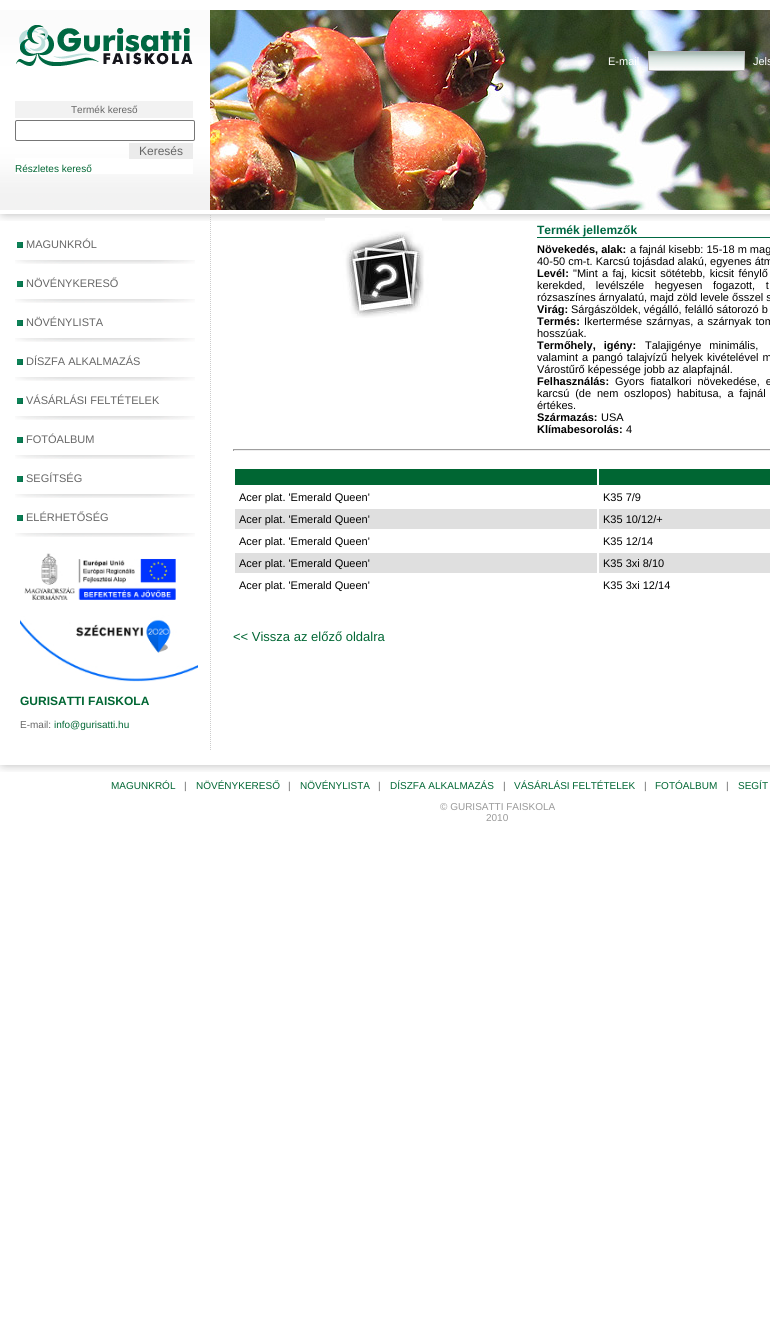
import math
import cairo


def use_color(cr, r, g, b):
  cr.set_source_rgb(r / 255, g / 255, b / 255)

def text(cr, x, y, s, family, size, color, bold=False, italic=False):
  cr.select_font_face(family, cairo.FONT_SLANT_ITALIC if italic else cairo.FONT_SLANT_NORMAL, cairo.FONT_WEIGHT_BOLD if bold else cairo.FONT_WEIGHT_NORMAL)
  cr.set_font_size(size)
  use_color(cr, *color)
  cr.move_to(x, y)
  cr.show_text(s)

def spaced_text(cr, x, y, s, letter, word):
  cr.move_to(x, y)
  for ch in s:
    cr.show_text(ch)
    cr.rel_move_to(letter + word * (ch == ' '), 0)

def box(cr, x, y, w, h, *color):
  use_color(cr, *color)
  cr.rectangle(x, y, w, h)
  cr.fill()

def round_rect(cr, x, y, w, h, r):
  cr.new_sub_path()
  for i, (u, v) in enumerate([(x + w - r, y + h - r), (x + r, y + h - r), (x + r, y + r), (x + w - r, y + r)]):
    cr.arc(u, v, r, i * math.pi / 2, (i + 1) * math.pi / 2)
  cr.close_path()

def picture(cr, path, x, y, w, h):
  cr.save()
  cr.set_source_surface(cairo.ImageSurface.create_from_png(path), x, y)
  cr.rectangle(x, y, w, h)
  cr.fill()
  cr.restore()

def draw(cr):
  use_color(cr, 255, 255, 255)
  cr.paint()
  picture(cr, "img_01.png", 0, 214, 770, 7)
  picture(cr, "img_02.png", 210, 10, 560, 200)
  picture(cr, "img_03.png", 649, 52, 95, 18)
  cr.rectangle(648.5, 51.5, 96, 19)
  use_color(cr, 176, 176, 176)
  cr.set_line_width(1)
  cr.stroke()
  picture(cr, "img_04.png", 0, 10, 210, 200)
  picture(cr, "img_05.png", 16, 25, 177, 41)
  box(cr, 15, 101, 178, 17, 242, 242, 242)
  box(cr, 15, 158, 178, 16, 255, 255, 255)
  round_rect(cr, 15.5, 120.5, 179, 20, 1.5)
  use_color(cr, 118, 118, 118)
  cr.stroke()
  box(cr, 129, 143, 64, 16, 235, 235, 235)
  cr.new_path()
  cr.move_to(210.5, 215)
  cr.line_to(210.5, 750)
  use_color(cr, 204, 204, 204)
  cr.set_dash([1, 1])
  cr.stroke()
  picture(cr, "img_06.png", 15, 260, 180, 4)
  picture(cr, "img_07.png", 17, 242, 6, 6)
  picture(cr, "img_06.png", 15, 299, 180, 4)
  picture(cr, "img_07.png", 17, 281, 6, 6)
  picture(cr, "img_06.png", 15, 338, 180, 4)
  picture(cr, "img_07.png", 17, 320, 6, 6)
  picture(cr, "img_06.png", 15, 377, 180, 4)
  picture(cr, "img_07.png", 17, 359, 6, 6)
  picture(cr, "img_06.png", 15, 416, 180, 4)
  picture(cr, "img_07.png", 17, 398, 6, 6)
  picture(cr, "img_06.png", 15, 455, 180, 4)
  picture(cr, "img_07.png", 17, 437, 6, 6)
  picture(cr, "img_06.png", 15, 494, 180, 4)
  picture(cr, "img_07.png", 17, 476, 6, 6)
  picture(cr, "img_06.png", 15, 533, 180, 4)
  picture(cr, "img_07.png", 17, 515, 6, 6)
  picture(cr, "img_08.png", 20, 553, 178, 129)
  picture(cr, "img_09.png", 325, 218, 117, 100)
  box(cr, 537, 237, 233, 1, 0, 104, 66)
  box(cr, 233, 449, 537, 1, 159, 159, 159)
  box(cr, 233, 450, 537, 1, 238, 238, 238)
  box(cr, 233, 449, 1, 2, 159, 159, 159)
  box(cr, 235, 469, 362, 16, 0, 102, 51)
  box(cr, 599, 469, 171, 16, 0, 102, 51)
  box(cr, 235, 509, 362, 20, 223, 223, 223)
  box(cr, 599, 509, 171, 20, 223, 223, 223)
  box(cr, 235, 553, 362, 20, 223, 223, 223)
  box(cr, 599, 553, 171, 20, 223, 223, 223)
  picture(cr, "img_10.png", 0, 765, 770, 7)
  text(cr, 608, 65, "E-mail", "Liberation Sans", 11, (255, 255, 255))
  text(cr, 753, 65, "Jels", "Liberation Sans", 11, (255, 255, 255))
  text(cr, 71, 113, "Termék kereső", "Liberation Sans", 10, (102, 102, 102))
  text(cr, 139, 155, "Keresés", "Liberation Sans", 12, (102, 102, 102))
  text(cr, 15, 172, "Részletes kereső", "Liberation Sans", 10, (0, 102, 51))
  text(cr, 26, 248, "MAGUNKRÓL", "Liberation Sans", 11, (102, 102, 102))
  text(cr, 26, 287, "NÖVÉNYKERESŐ", "Liberation Sans", 11, (102, 102, 102))
  text(cr, 26, 326, "NÖVÉNYLISTA", "Liberation Sans", 11, (102, 102, 102))
  text(cr, 26, 365, "DÍSZFA ALKALMAZÁS", "Liberation Sans", 11, (102, 102, 102))
  text(cr, 26, 404, "VÁSÁRLÁSI FELTÉTELEK", "Liberation Sans", 11, (102, 102, 102))
  text(cr, 26, 443, "FOTÓALBUM", "Liberation Sans", 11, (102, 102, 102))
  text(cr, 26, 482, "SEGÍTSÉG", "Liberation Sans", 11, (102, 102, 102))
  text(cr, 26, 521, "ELÉRHETŐSÉG", "Liberation Sans", 11, (102, 102, 102))
  text(cr, 20, 705, "GURISATTI FAISKOLA", "Liberation Sans", 12, (0, 102, 51), bold=True)
  text(cr, 20, 728, "E-mail:", "Liberation Sans", 10, (102, 102, 102))
  text(cr, 54, 728, "info@gurisatti.hu", "Liberation Sans", 10, (0, 102, 51))
  text(cr, 537, 234, "Termék jellemzők", "Liberation Sans", 12, (0, 104, 66), bold=True)
  text(cr, 537, 253, "Növekedés, alak:", "Liberation Sans", 11, (0, 0, 0), bold=True)
  text(cr, 630, 253, "a fajnál kisebb: 15-18 m mag", "Liberation Sans", 11, (0, 0, 0))
  text(cr, 537, 265, "40-50 cm-t. Karcsú tojásdad alakú, egyenes átm", "Liberation Sans", 11, (0, 0, 0))
  text(cr, 537, 277, "Levél:", "Liberation Sans", 11, (0, 0, 0), bold=True)
  cr.select_font_face("Liberation Sans")
  spaced_text(cr, 573, 277, "\"Mint a faj, kicsit sötétebb, kicsit fénylő", 0, 1.25)
  spaced_text(cr, 537, 289, "kerekded, levélszéle hegyesen fogazott, t", 0, 7.5)
  text(cr, 537, 301, "rózsaszínes árnyalatú, majd zöld levele ősszel s", "Liberation Sans", 11, (0, 0, 0))
  text(cr, 537, 313, "Virág:", "Liberation Sans", 11, (0, 0, 0), bold=True)
  text(cr, 571, 313, "Sárgászöldek, végálló, felálló sátorozó b", "Liberation Sans", 11, (0, 0, 0))
  text(cr, 537, 325, "Termés:", "Liberation Sans", 11, (0, 0, 0), bold=True)
  cr.select_font_face("Liberation Sans")
  spaced_text(cr, 584, 325, "Ikertermése szárnyas, a szárnyak tom", 0, 1)
  text(cr, 537, 337, "hosszúak.", "Liberation Sans", 11, (0, 0, 0))
  cr.select_font_face("Liberation Sans", cairo.FONT_SLANT_NORMAL, cairo.FONT_WEIGHT_BOLD)
  spaced_text(cr, 537, 349, "Termőhely, igény:", 0, 5)
  cr.select_font_face("Liberation Sans")
  spaced_text(cr, 645, 349, "Talajigénye minimális,", 0, 5)
  spaced_text(cr, 537, 361, "valamint a pangó talajvízű helyek kivételével m", 0, 1)
  text(cr, 537, 373, "Várostűrő képessége jobb az alapfajnál.", "Liberation Sans", 11, (0, 0, 0))
  text(cr, 537, 385, "Felhasználás:", "Liberation Sans", 11, (0, 0, 0), bold=True)
  cr.select_font_face("Liberation Sans")
  spaced_text(cr, 615, 385, "Gyors fiatalkori növekedése, e", 0, 3)
  spaced_text(cr, 537, 397, "karcsú (de nem oszlopos) habitusa, a fajnál", 0, 2.75)
  text(cr, 537, 409, "értékes.", "Liberation Sans", 11, (0, 0, 0))
  text(cr, 537, 421, "Származás:", "Liberation Sans", 11, (0, 0, 0), bold=True)
  text(cr, 601, 421, "USA", "Liberation Sans", 11, (0, 0, 0))
  text(cr, 537, 433, "Klímabesorolás:", "Liberation Sans", 11, (0, 0, 0), bold=True)
  text(cr, 626, 433, "4", "Liberation Sans", 11, (0, 0, 0))
  text(cr, 239, 501, "Acer plat. 'Emerald Queen'", "Liberation Sans", 11, (0, 0, 0))
  text(cr, 603, 501, "K35 7/9", "Liberation Sans", 11, (0, 0, 0))
  text(cr, 239, 523, "Acer plat. 'Emerald Queen'", "Liberation Sans", 11, (0, 0, 0))
  text(cr, 603, 523, "K35 10/12/+", "Liberation Sans", 11, (0, 0, 0))
  text(cr, 239, 545, "Acer plat. 'Emerald Queen'", "Liberation Sans", 11, (0, 0, 0))
  text(cr, 603, 545, "K35 12/14", "Liberation Sans", 11, (0, 0, 0))
  text(cr, 239, 567, "Acer plat. 'Emerald Queen'", "Liberation Sans", 11, (0, 0, 0))
  text(cr, 603, 567, "K35 3xi 8/10", "Liberation Sans", 11, (0, 0, 0))
  text(cr, 239, 589, "Acer plat. 'Emerald Queen'", "Liberation Sans", 11, (0, 0, 0))
  text(cr, 603, 589, "K35 3xi 12/14", "Liberation Sans", 11, (0, 0, 0))
  text(cr, 233, 641, "<< Vissza az előző oldalra", "Liberation Sans", 13, (0, 102, 51))
  text(cr, 111, 789, "MAGUNKRÓL", "Liberation Sans", 10, (0, 102, 51))
  text(cr, 184, 789, "|", "Liberation Sans", 10, (102, 102, 102))
  text(cr, 196, 789, "NÖVÉNYKERESŐ", "Liberation Sans", 10, (0, 102, 51))
  text(cr, 288, 789, "|", "Liberation Sans", 10, (102, 102, 102))
  text(cr, 300, 789, "NÖVÉNYLISTA", "Liberation Sans", 10, (0, 102, 51))
  text(cr, 378, 789, "|", "Liberation Sans", 10, (102, 102, 102))
  text(cr, 390, 789, "DÍSZFA ALKALMAZÁS", "Liberation Sans", 10, (0, 102, 51))
  text(cr, 503, 789, "|", "Liberation Sans", 10, (102, 102, 102))
  text(cr, 514, 789, "VÁSÁRLÁSI FELTÉTELEK", "Liberation Sans", 10, (0, 102, 51))
  text(cr, 644, 789, "|", "Liberation Sans", 10, (102, 102, 102))
  text(cr, 655, 789, "FOTÓALBUM", "Liberation Sans", 10, (0, 102, 51))
  text(cr, 726, 789, "|", "Liberation Sans", 10, (102, 102, 102))
  text(cr, 738, 789, "SEGÍT", "Liberation Sans", 10, (0, 102, 51))
  text(cr, 440, 810, "© GURISATTI FAISKOLA", "Liberation Sans", 10, (153, 153, 153))
  text(cr, 486, 821, "2010", "Liberation Sans", 10, (153, 153, 153))


surface = cairo.ImageSurface(cairo.FORMAT_RGB24, 770, 1333)
cr = cairo.Context(surface)
options = cairo.FontOptions()
options.set_hint_metrics(cairo.HINT_METRICS_OFF)
options.set_hint_style(cairo.HINT_STYLE_NONE)
cr.set_font_options(options)
cr.set_miter_limit(4)
draw(cr)
surface.write_to_png("out.png")
